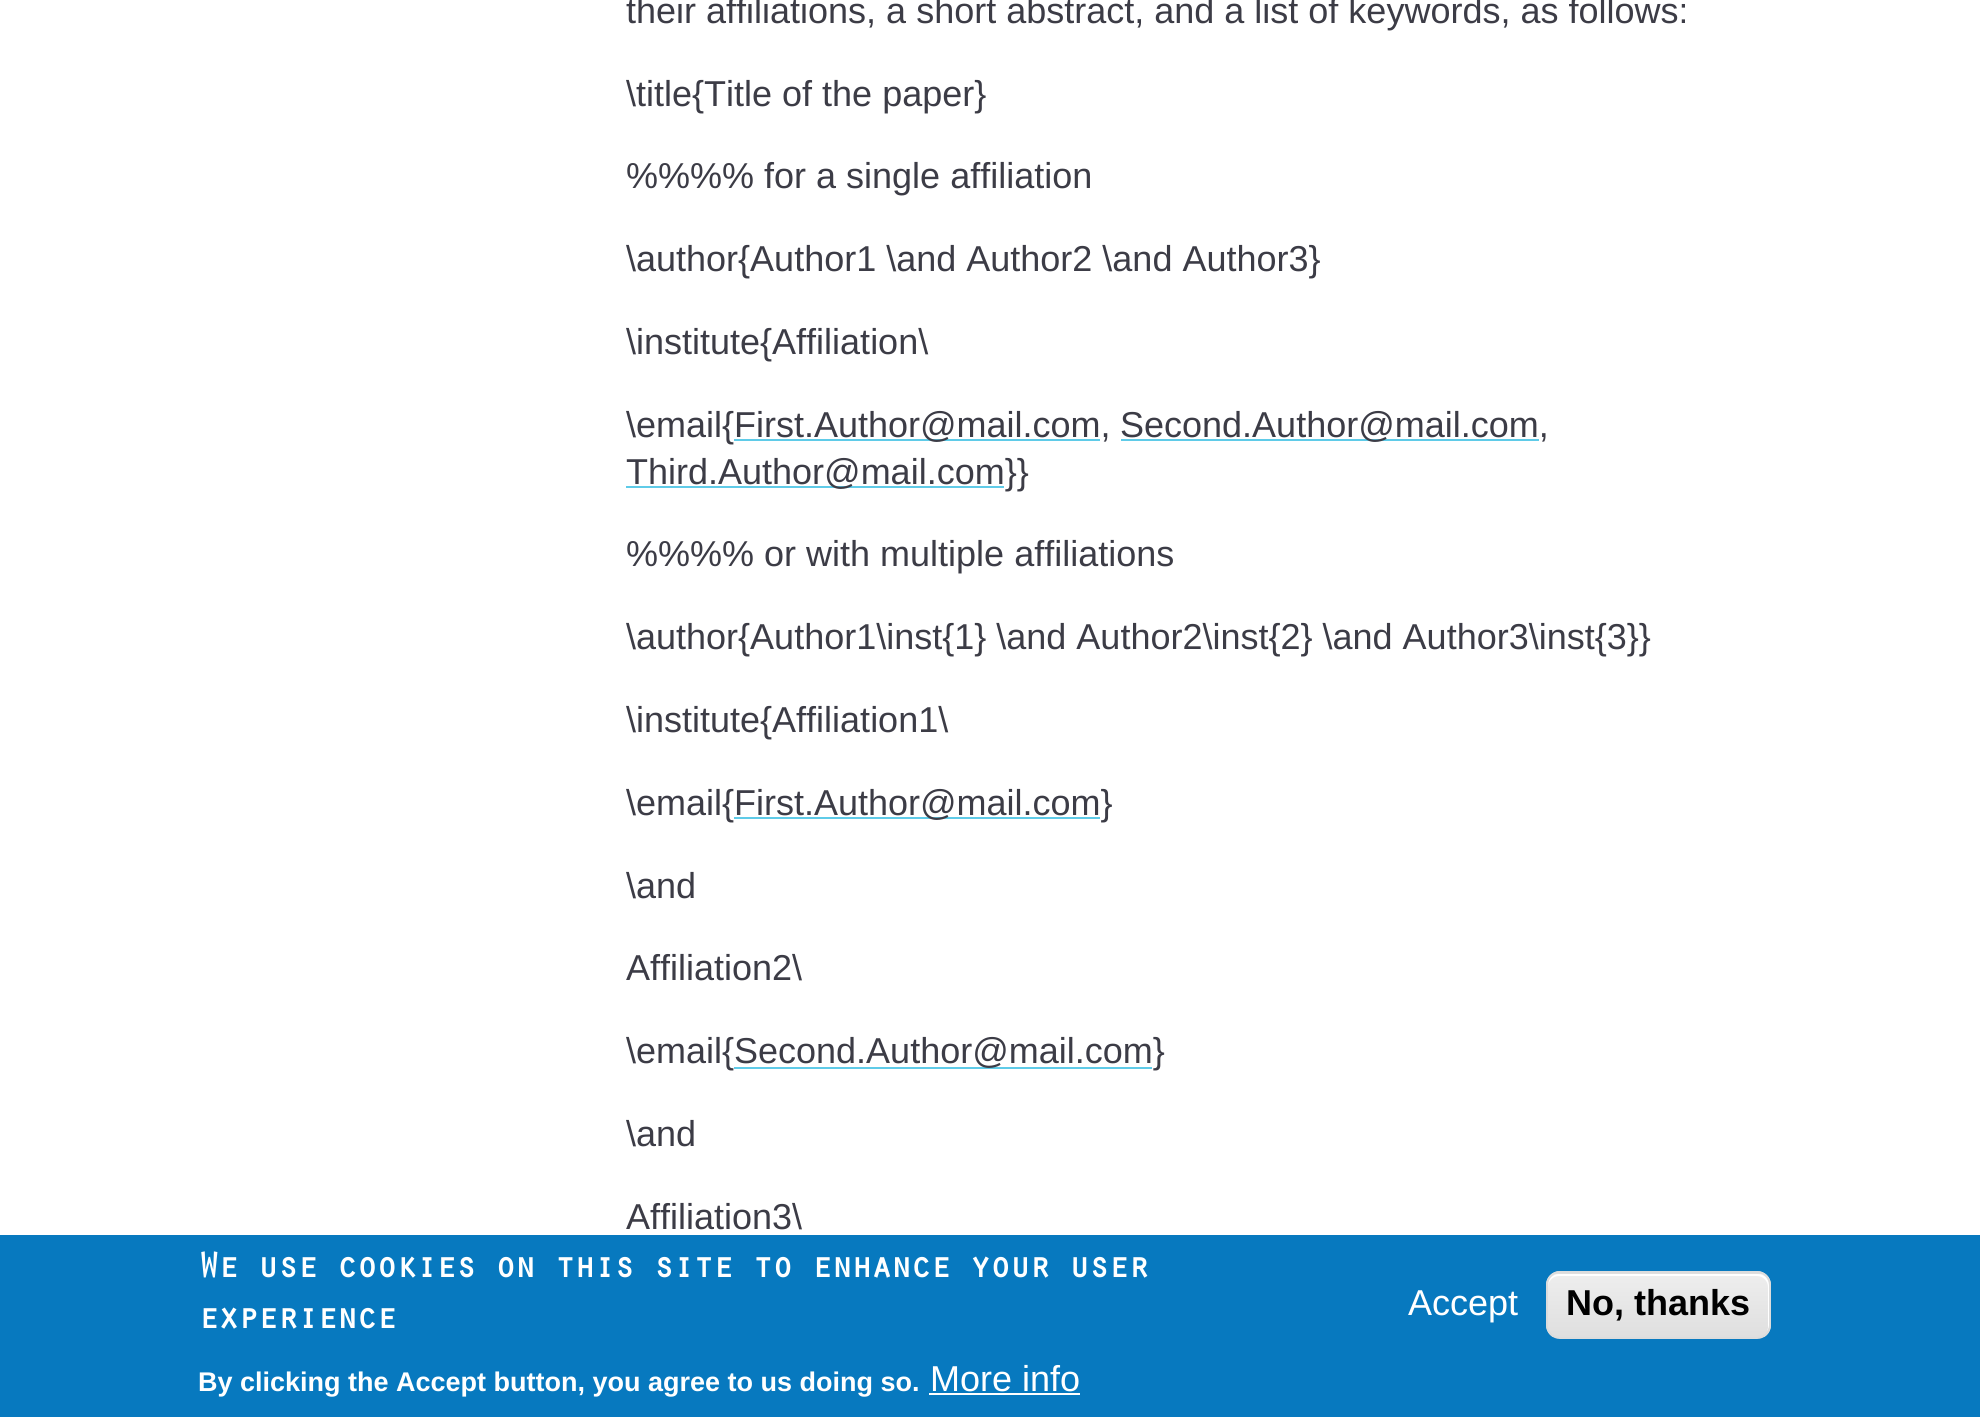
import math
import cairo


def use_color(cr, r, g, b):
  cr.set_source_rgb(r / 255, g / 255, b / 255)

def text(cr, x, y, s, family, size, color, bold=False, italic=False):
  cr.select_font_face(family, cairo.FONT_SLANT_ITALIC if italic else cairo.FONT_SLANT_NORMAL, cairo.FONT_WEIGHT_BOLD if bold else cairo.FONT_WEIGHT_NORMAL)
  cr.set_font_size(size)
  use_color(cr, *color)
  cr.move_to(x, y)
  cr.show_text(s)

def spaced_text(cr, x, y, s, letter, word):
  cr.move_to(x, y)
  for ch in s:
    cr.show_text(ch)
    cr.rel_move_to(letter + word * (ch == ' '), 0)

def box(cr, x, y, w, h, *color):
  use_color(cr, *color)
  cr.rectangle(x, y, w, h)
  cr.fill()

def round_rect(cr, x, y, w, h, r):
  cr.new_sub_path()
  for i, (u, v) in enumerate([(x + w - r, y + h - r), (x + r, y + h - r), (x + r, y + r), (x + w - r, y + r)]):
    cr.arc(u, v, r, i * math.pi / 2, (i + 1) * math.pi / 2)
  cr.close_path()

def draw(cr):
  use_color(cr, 255, 255, 255)
  cr.paint()
  box(cr, 734, 439, 366, 2, 95, 203, 232)
  box(cr, 1121, 439, 418, 2, 95, 203, 232)
  box(cr, 626, 486, 378, 2, 95, 203, 232)
  box(cr, 734, 817, 366, 2, 95, 203, 232)
  box(cr, 734, 1067, 418, 2, 95, 203, 232)
  box(cr, 0, 1235, 1980, 182, 7, 121, 191)
  box(cr, 929, 1393, 151, 2, 255, 255, 255)
  cr.save()
  round_rect(cr, 1546, 1271, 225, 68, 14)
  cr.clip()
  gradient = cairo.LinearGradient(1658, 1211, 1658, 1274)
  gradient.add_color_stop_rgba(0.05, 0.929, 0.929, 0.929, 1)
  gradient.add_color_stop_rgba(1, 0.875, 0.875, 0.875, 1)
  cr.set_source(gradient)
  cr.rectangle(1546, 1271, 225, 3)
  cr.fill()
  gradient = cairo.LinearGradient(1658, 1274, 1658, 1337)
  gradient.add_color_stop_rgba(0.05, 0.929, 0.929, 0.929, 1)
  gradient.add_color_stop_rgba(1, 0.875, 0.875, 0.875, 1)
  cr.set_source(gradient)
  cr.rectangle(1546, 1274, 225, 63)
  cr.fill()
  cr.restore()
  cr.new_path()
  cr.move_to(1559, 1276)
  cr.line_to(1757, 1276)
  cr.curve_to(1763, 1276, 1768, 1281, 1768, 1287)
  cr.line_to(1768, 1328)
  cr.line_to(1767, 1332)
  cr.curve_to(1768, 1330, 1769, 1328, 1769, 1326)
  cr.line_to(1769, 1285)
  cr.curve_to(1769, 1279, 1764, 1274, 1758, 1274)
  cr.line_to(1559, 1274)
  cr.curve_to(1553, 1274, 1548, 1279, 1548, 1285)
  cr.line_to(1548, 1287)
  cr.curve_to(1548, 1281, 1553, 1276, 1559, 1276)
  cr.close_path()
  cr.fill()
  round_rect(cr, 1547, 1272, 223, 66, 13)
  use_color(cr, 220, 220, 220)
  cr.stroke()
  text(cr, 626, 23, "their affiliations, a short abstract, and a list of keywords, as follows:", "Liberation Sans", 36, (60, 60, 70))
  text(cr, 626, 106, "\\title{Title of the paper}", "Liberation Sans", 36, (60, 60, 70))
  text(cr, 626, 188, "%%%% for a single affiliation", "Liberation Sans", 36, (60, 60, 70))
  text(cr, 626, 271, "\\author{Author1 \\and Author2 \\and Author3}", "Liberation Sans", 36, (60, 60, 70))
  text(cr, 626, 354, "\\institute{Affiliation\\", "Liberation Sans", 36, (60, 60, 70))
  text(cr, 626, 437, "\\email{", "Liberation Sans", 36, (60, 60, 70))
  text(cr, 734, 437, "First.Author@mail.com,", "Liberation Sans", 36, (60, 60, 70))
  text(cr, 1120, 437, "Second.Author@mail.com,", "Liberation Sans", 36, (60, 60, 70))
  text(cr, 626, 484, "Third.Author@mail.com}}", "Liberation Sans", 36, (60, 60, 70))
  text(cr, 626, 566, "%%%% or with multiple affiliations", "Liberation Sans", 36, (60, 60, 70))
  text(cr, 626, 649, "\\author{Author1\\inst{1} \\and Author2\\inst{2} \\and Author3\\inst{3}}", "Liberation Sans", 36, (60, 60, 70))
  text(cr, 626, 732, "\\institute{Affiliation1\\", "Liberation Sans", 36, (60, 60, 70))
  text(cr, 626, 815, "\\email{", "Liberation Sans", 36, (60, 60, 70))
  text(cr, 734, 815, "First.Author@mail.com}", "Liberation Sans", 36, (60, 60, 70))
  text(cr, 626, 898, "\\and", "Liberation Sans", 36, (60, 60, 70))
  text(cr, 626, 980, "Affiliation2\\", "Liberation Sans", 36, (60, 60, 70))
  text(cr, 626, 1063, "\\email{", "Liberation Sans", 36, (60, 60, 70))
  text(cr, 734, 1063, "Second.Author@mail.com}", "Liberation Sans", 36, (60, 60, 70))
  text(cr, 626, 1146, "\\and", "Liberation Sans", 36, (60, 60, 70))
  text(cr, 626, 1229, "Affiliation3\\", "Liberation Sans", 36, (60, 60, 70))
  cr.select_font_face("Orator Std", cairo.FONT_SLANT_NORMAL, cairo.FONT_WEIGHT_BOLD)
  use_color(cr, 255, 255, 255)
  spaced_text(cr, 198, 1277, "We use cookies on this site to enhance your user", -1.8, 0)
  spaced_text(cr, 198, 1328, "experience", -1.8, 0)
  text(cr, 198, 1391, "By clicking the Accept button, you agree to us doing so.", "Liberation Sans", 27, (255, 255, 255), bold=True)
  text(cr, 930, 1391, "More info", "Liberation Sans", 36, (255, 255, 255))
  text(cr, 1408, 1315, "Accept", "Liberation Sans", 36, (255, 255, 255))
  text(cr, 1566, 1315, "No, thanks", "Liberation Sans", 36, (0, 0, 0), bold=True)


surface = cairo.ImageSurface(cairo.FORMAT_RGB24, 1980, 1417)
cr = cairo.Context(surface)
options = cairo.FontOptions()
options.set_hint_metrics(cairo.HINT_METRICS_OFF)
options.set_hint_style(cairo.HINT_STYLE_NONE)
cr.set_font_options(options)
cr.set_miter_limit(4)
draw(cr)
surface.write_to_png("out.png")
